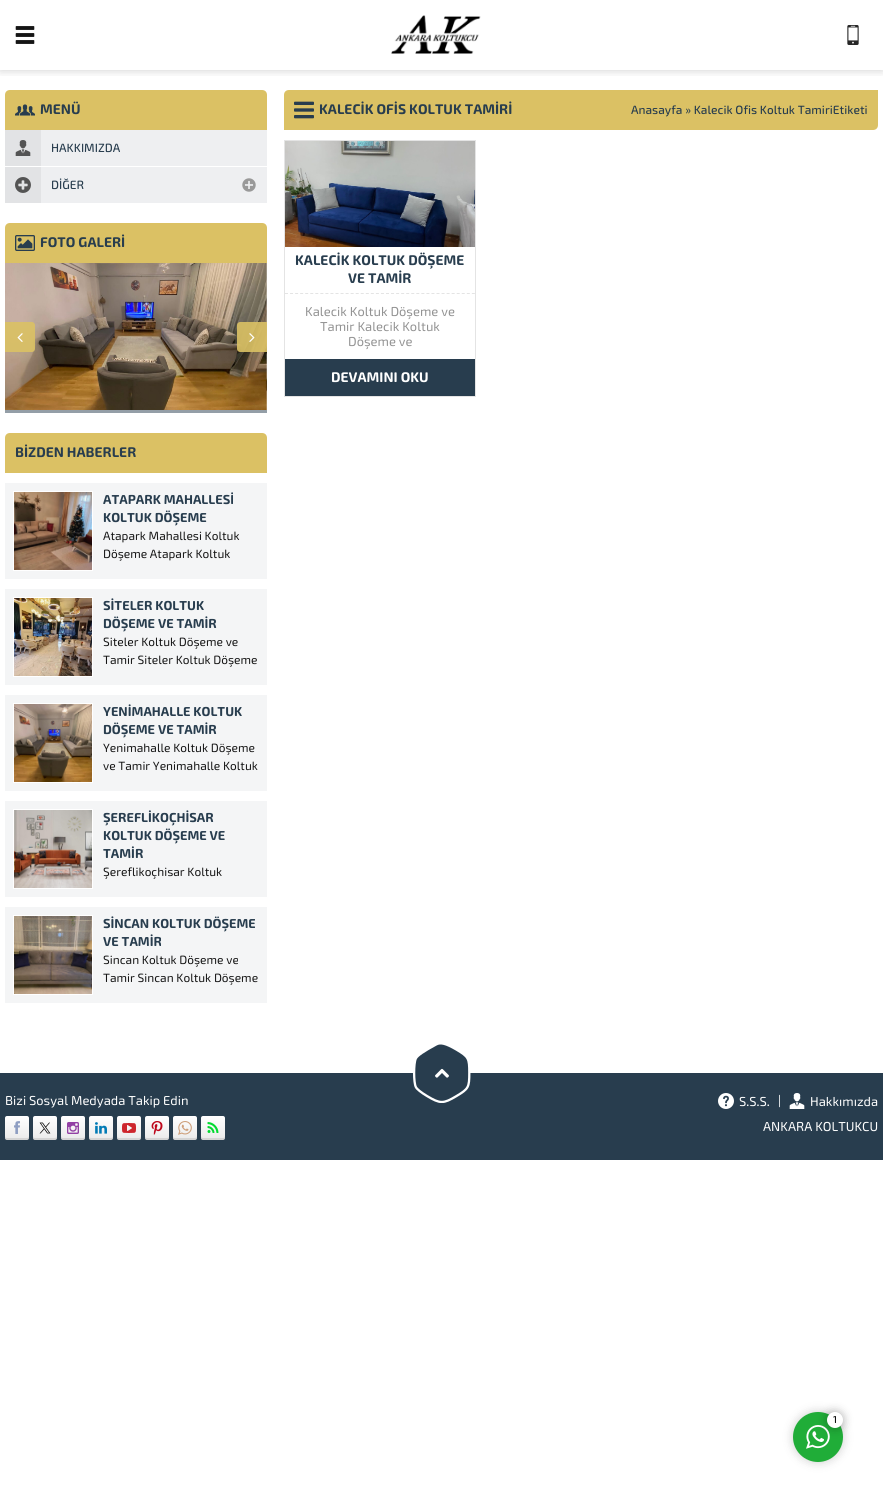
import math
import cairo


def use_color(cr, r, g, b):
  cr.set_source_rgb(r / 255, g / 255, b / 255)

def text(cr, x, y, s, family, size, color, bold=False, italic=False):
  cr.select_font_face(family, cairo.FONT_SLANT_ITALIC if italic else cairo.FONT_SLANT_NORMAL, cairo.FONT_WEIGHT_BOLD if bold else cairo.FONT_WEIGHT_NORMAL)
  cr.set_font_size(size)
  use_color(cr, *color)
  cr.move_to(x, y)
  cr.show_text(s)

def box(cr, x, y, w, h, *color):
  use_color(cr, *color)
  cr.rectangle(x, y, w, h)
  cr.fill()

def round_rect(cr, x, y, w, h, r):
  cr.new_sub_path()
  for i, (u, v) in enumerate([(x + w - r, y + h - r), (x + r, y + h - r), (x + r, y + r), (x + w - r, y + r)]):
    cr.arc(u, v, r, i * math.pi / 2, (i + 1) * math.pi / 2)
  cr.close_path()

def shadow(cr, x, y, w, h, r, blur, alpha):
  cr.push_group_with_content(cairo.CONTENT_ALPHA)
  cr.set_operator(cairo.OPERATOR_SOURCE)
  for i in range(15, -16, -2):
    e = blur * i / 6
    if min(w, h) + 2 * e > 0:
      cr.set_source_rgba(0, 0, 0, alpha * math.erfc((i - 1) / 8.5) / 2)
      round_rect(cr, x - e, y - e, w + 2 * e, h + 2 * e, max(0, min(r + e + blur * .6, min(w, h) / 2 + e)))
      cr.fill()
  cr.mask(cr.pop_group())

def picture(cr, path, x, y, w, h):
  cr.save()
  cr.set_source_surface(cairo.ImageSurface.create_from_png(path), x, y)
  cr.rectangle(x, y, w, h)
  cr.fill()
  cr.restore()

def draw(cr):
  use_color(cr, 255, 255, 255)
  cr.paint()
  cr.save()
  cr.rectangle(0, 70, 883, 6)
  cr.clip()
  use_color(cr, 0, 0, 0)
  shadow(cr, 0, 0, 883, 70, 0, 5, 0.2)
  cr.restore()
  picture(cr, "img_01.png", 15, 26, 20, 18)
  picture(cr, "img_02.png", 391, 15, 90, 39)
  picture(cr, "img_03.png", 847, 25, 12, 20)
  use_color(cr, 219, 193, 100)
  cr.new_path()
  cr.move_to(10, 90)
  cr.line_to(262, 90)
  cr.curve_to(265, 90, 267, 92, 267, 95)
  cr.line_to(267, 130)
  cr.line_to(5, 130)
  cr.line_to(5, 95)
  cr.curve_to(5, 92, 7, 90, 10, 90)
  cr.close_path()
  cr.fill()
  picture(cr, "img_04.png", 15, 104, 20, 12)
  box(cr, 41, 130, 226, 36, 238, 239, 241)
  box(cr, 5, 130, 36, 36, 226, 227, 229)
  picture(cr, "img_05.png", 15, 140, 16, 16)
  box(cr, 41, 167, 226, 36, 238, 239, 241)
  picture(cr, "img_06.png", 242, 178, 14, 14)
  box(cr, 5, 167, 36, 36, 226, 227, 229)
  picture(cr, "img_07.png", 15, 177, 16, 16)
  use_color(cr, 219, 193, 100)
  cr.new_path()
  cr.move_to(10, 223)
  cr.line_to(262, 223)
  cr.curve_to(265, 223, 267, 225, 267, 228)
  cr.line_to(267, 263)
  cr.line_to(5, 263)
  cr.line_to(5, 228)
  cr.curve_to(5, 225, 7, 223, 10, 223)
  cr.close_path()
  cr.fill()
  picture(cr, "img_08.png", 15, 235, 20, 16)
  box(cr, 5, 410, 262, 3, 148, 158, 167)
  picture(cr, "img_09.png", 5, 263, 262, 147)
  picture(cr, "img_10.png", 266, 263, 1, 147)
  cr.set_source_rgba(0.859, 0.757, 0.392, 0.9)
  cr.new_path()
  cr.move_to(5, 322)
  cr.line_to(32, 322)
  cr.curve_to(33.5, 322, 35, 323.5, 35, 325)
  cr.line_to(35, 349)
  cr.curve_to(35, 350.5, 33.5, 352, 32, 352)
  cr.line_to(5, 352)
  cr.close_path()
  cr.fill()
  picture(cr, "img_11.png", 17, 333, 6, 9)
  cr.new_path()
  cr.move_to(240, 322)
  cr.line_to(267, 322)
  cr.line_to(267, 352)
  cr.line_to(240, 352)
  cr.curve_to(238.5, 352, 237, 350.5, 237, 349)
  cr.line_to(237, 325)
  cr.curve_to(237, 323.5, 238.5, 322, 240, 322)
  cr.close_path()
  cr.fill()
  picture(cr, "img_12.png", 249, 333, 6, 9)
  use_color(cr, 219, 193, 100)
  cr.new_path()
  cr.move_to(10, 433)
  cr.line_to(262, 433)
  cr.curve_to(265, 433, 267, 435, 267, 438)
  cr.line_to(267, 473)
  cr.line_to(5, 473)
  cr.line_to(5, 438)
  cr.curve_to(5, 435, 7, 433, 10, 433)
  cr.close_path()
  cr.fill()
  box(cr, 5, 483, 262, 96, 244, 245, 246)
  cr.rectangle(13.5, 491.5, 79, 79)
  use_color(cr, 255, 255, 255)
  cr.set_line_width(1)
  cr.stroke()
  picture(cr, "img_13.png", 14, 492, 78, 78)
  box(cr, 5, 589, 262, 96, 244, 245, 246)
  cr.rectangle(13.5, 597.5, 79, 79)
  use_color(cr, 255, 255, 255)
  cr.stroke()
  picture(cr, "img_14.png", 14, 598, 78, 78)
  box(cr, 5, 695, 262, 96, 244, 245, 246)
  cr.rectangle(13.5, 703.5, 79, 79)
  use_color(cr, 255, 255, 255)
  cr.stroke()
  picture(cr, "img_15.png", 14, 704, 78, 78)
  box(cr, 5, 801, 262, 96, 244, 245, 246)
  cr.rectangle(13.5, 809.5, 79, 79)
  use_color(cr, 255, 255, 255)
  cr.stroke()
  picture(cr, "img_16.png", 14, 810, 78, 78)
  box(cr, 5, 907, 262, 96, 244, 245, 246)
  cr.rectangle(13.5, 915.5, 79, 79)
  use_color(cr, 255, 255, 255)
  cr.stroke()
  picture(cr, "img_17.png", 14, 916, 78, 78)
  use_color(cr, 219, 193, 100)
  cr.new_path()
  cr.move_to(289, 90)
  cr.line_to(878, 90)
  cr.line_to(878, 125)
  cr.curve_to(878, 128, 876, 130, 873, 130)
  cr.line_to(284, 130)
  cr.line_to(284, 95)
  cr.curve_to(284, 92, 286, 90, 289, 90)
  cr.close_path()
  cr.fill()
  picture(cr, "img_18.png", 294, 101, 20, 18)
  cr.rectangle(284.5, 140.5, 191, 256)
  use_color(cr, 228, 228, 228)
  cr.stroke()
  picture(cr, "img_19.png", 285, 141, 190, 106)
  cr.new_path()
  cr.move_to(285, 293.5)
  cr.line_to(475, 293.5)
  cr.set_dash([3, 2.05])
  cr.stroke()
  box(cr, 285, 359, 190, 37, 40, 61, 78)
  box(cr, 0, 1073, 883, 87, 40, 61, 78)
  picture(cr, "img_20.png", 412, 1044, 59, 59)
  picture(cr, "img_21.png", 435, 1068, 14, 10)
  gradient = cairo.LinearGradient(17, 1116, 17, 1140)
  gradient.add_color_stop_rgba(0, 1, 1, 1, 1)
  gradient.add_color_stop_rgba(1, 0.918, 0.918, 0.918, 1)
  cr.set_source(gradient)
  round_rect(cr, 5, 1116, 24, 24, 2)
  cr.fill()
  cr.set_source_rgba(0, 0, 0, 0.1)
  cr.new_path()
  cr.move_to(5, 1136)
  cr.curve_to(5, 1140.5, 6, 1140, 10.5, 1140)
  cr.line_to(23.5, 1140)
  cr.curve_to(28, 1140, 29, 1140.5, 29, 1136)
  cr.curve_to(29, 1137, 28, 1138, 27, 1138)
  cr.line_to(7, 1138)
  cr.curve_to(6, 1138, 5, 1137, 5, 1136)
  cr.close_path()
  cr.fill()
  picture(cr, "img_22.png", 14, 1121, 6, 13)
  gradient = cairo.LinearGradient(45, 1116, 45, 1140)
  gradient.add_color_stop_rgba(0, 1, 1, 1, 1)
  gradient.add_color_stop_rgba(1, 0.918, 0.918, 0.918, 1)
  cr.set_source(gradient)
  round_rect(cr, 33, 1116, 24, 24, 2)
  cr.fill()
  cr.set_source_rgba(0, 0, 0, 0.1)
  cr.new_path()
  cr.move_to(33, 1136)
  cr.curve_to(33, 1140.5, 34, 1140, 38.5, 1140)
  cr.line_to(51.5, 1140)
  cr.curve_to(56, 1140, 57, 1140.5, 57, 1136)
  cr.curve_to(57, 1137, 56, 1138, 55, 1138)
  cr.line_to(35, 1138)
  cr.curve_to(34, 1138, 33, 1137, 33, 1136)
  cr.close_path()
  cr.fill()
  picture(cr, "img_23.png", 39, 1122, 12, 12)
  gradient = cairo.LinearGradient(73, 1116, 73, 1140)
  gradient.add_color_stop_rgba(0, 1, 1, 1, 1)
  gradient.add_color_stop_rgba(1, 0.918, 0.918, 0.918, 1)
  cr.set_source(gradient)
  round_rect(cr, 61, 1116, 24, 24, 2)
  cr.fill()
  cr.set_source_rgba(0, 0, 0, 0.1)
  cr.new_path()
  cr.move_to(61, 1136)
  cr.curve_to(61, 1140.5, 62, 1140, 66.5, 1140)
  cr.line_to(79.5, 1140)
  cr.curve_to(84, 1140, 85, 1140.5, 85, 1136)
  cr.curve_to(85, 1137, 84, 1138, 83, 1138)
  cr.line_to(63, 1138)
  cr.curve_to(62, 1138, 61, 1137, 61, 1136)
  cr.close_path()
  cr.fill()
  picture(cr, "img_24.png", 67, 1122, 12, 12)
  gradient = cairo.LinearGradient(101, 1116, 101, 1140)
  gradient.add_color_stop_rgba(0, 1, 1, 1, 1)
  gradient.add_color_stop_rgba(1, 0.918, 0.918, 0.918, 1)
  cr.set_source(gradient)
  round_rect(cr, 89, 1116, 24, 24, 2)
  cr.fill()
  cr.set_source_rgba(0, 0, 0, 0.1)
  cr.new_path()
  cr.move_to(89, 1136)
  cr.curve_to(89, 1140.5, 90, 1140, 94.5, 1140)
  cr.line_to(107.5, 1140)
  cr.curve_to(112, 1140, 113, 1140.5, 113, 1136)
  cr.curve_to(113, 1137, 112, 1138, 111, 1138)
  cr.line_to(91, 1138)
  cr.curve_to(90, 1138, 89, 1137, 89, 1136)
  cr.close_path()
  cr.fill()
  picture(cr, "img_25.png", 95, 1122, 12, 12)
  gradient = cairo.LinearGradient(129, 1116, 129, 1140)
  gradient.add_color_stop_rgba(0, 1, 1, 1, 1)
  gradient.add_color_stop_rgba(1, 0.918, 0.918, 0.918, 1)
  cr.set_source(gradient)
  round_rect(cr, 117, 1116, 24, 24, 2)
  cr.fill()
  cr.set_source_rgba(0, 0, 0, 0.1)
  cr.new_path()
  cr.move_to(117, 1136)
  cr.curve_to(117, 1140.5, 118, 1140, 122.5, 1140)
  cr.line_to(135.5, 1140)
  cr.curve_to(140, 1140, 141, 1140.5, 141, 1136)
  cr.curve_to(141, 1137, 140, 1138, 139, 1138)
  cr.line_to(119, 1138)
  cr.curve_to(118, 1138, 117, 1137, 117, 1136)
  cr.close_path()
  cr.fill()
  picture(cr, "img_26.png", 122, 1123, 14, 10)
  gradient = cairo.LinearGradient(157, 1116, 157, 1140)
  gradient.add_color_stop_rgba(0, 1, 1, 1, 1)
  gradient.add_color_stop_rgba(1, 0.918, 0.918, 0.918, 1)
  cr.set_source(gradient)
  round_rect(cr, 145, 1116, 24, 24, 2)
  cr.fill()
  cr.set_source_rgba(0, 0, 0, 0.1)
  cr.new_path()
  cr.move_to(145, 1136)
  cr.curve_to(145, 1140.5, 146, 1140, 150.5, 1140)
  cr.line_to(163.5, 1140)
  cr.curve_to(168, 1140, 169, 1140.5, 169, 1136)
  cr.curve_to(169, 1137, 168, 1138, 167, 1138)
  cr.line_to(147, 1138)
  cr.curve_to(146, 1138, 145, 1137, 145, 1136)
  cr.close_path()
  cr.fill()
  picture(cr, "img_27.png", 151, 1121, 12, 14)
  gradient = cairo.LinearGradient(185, 1116, 185, 1140)
  gradient.add_color_stop_rgba(0, 1, 1, 1, 1)
  gradient.add_color_stop_rgba(1, 0.918, 0.918, 0.918, 1)
  cr.set_source(gradient)
  round_rect(cr, 173, 1116, 24, 24, 2)
  cr.fill()
  cr.set_source_rgba(0, 0, 0, 0.1)
  cr.new_path()
  cr.move_to(173, 1136)
  cr.curve_to(173, 1140.5, 174, 1140, 178.5, 1140)
  cr.line_to(191.5, 1140)
  cr.curve_to(196, 1140, 197, 1140.5, 197, 1136)
  cr.curve_to(197, 1137, 196, 1138, 195, 1138)
  cr.line_to(175, 1138)
  cr.curve_to(174, 1138, 173, 1137, 173, 1136)
  cr.close_path()
  cr.fill()
  picture(cr, "img_28.png", 178, 1121, 14, 14)
  gradient = cairo.LinearGradient(213, 1116, 213, 1140)
  gradient.add_color_stop_rgba(0, 1, 1, 1, 1)
  gradient.add_color_stop_rgba(1, 0.918, 0.918, 0.918, 1)
  cr.set_source(gradient)
  round_rect(cr, 201, 1116, 24, 24, 2)
  cr.fill()
  cr.set_source_rgba(0, 0, 0, 0.1)
  cr.new_path()
  cr.move_to(201, 1136)
  cr.curve_to(201, 1140.5, 202, 1140, 206.5, 1140)
  cr.line_to(219.5, 1140)
  cr.curve_to(224, 1140, 225, 1140.5, 225, 1136)
  cr.curve_to(225, 1137, 224, 1138, 223, 1138)
  cr.line_to(203, 1138)
  cr.curve_to(202, 1138, 201, 1137, 201, 1136)
  cr.close_path()
  cr.fill()
  picture(cr, "img_29.png", 207, 1122, 12, 11)
  picture(cr, "img_30.png", 718, 1093, 16, 16)
  picture(cr, "img_31.png", 789, 1093, 16, 16)
  use_color(cr, 0, 0, 0)
  shadow(cr, 793, 1412, 50, 50, 25, 5, 0.2)
  use_color(cr, 32, 173, 56)
  cr.arc(818, 1437, 25, 0, 2 * math.pi)
  cr.fill()
  picture(cr, "img_32.png", 806, 1425, 24, 24)
  use_color(cr, 0, 0, 0)
  shadow(cr, 827, 1412, 16, 16, 8, 5, 0.28)
  use_color(cr, 255, 255, 255)
  cr.arc(835, 1420, 8, 0, 2 * math.pi)
  cr.fill()
  text(cr, 40, 114, "MENÜ", "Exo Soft", 14, (40, 61, 78), bold=True)
  text(cr, 51, 152, "HAKKIMIZDA", "Exo Soft Medium", 12, (40, 61, 78))
  text(cr, 51, 189, "DİĞER", "Exo Soft Medium", 12, (40, 61, 78))
  text(cr, 40, 247, "FOTO GALERİ", "Exo Soft", 14, (40, 61, 78), bold=True)
  text(cr, 15, 457, "BİZDEN HABERLER", "Exo Soft", 14, (40, 61, 78), bold=True)
  text(cr, 103, 504, "ATAPARK MAHALLESİ", "Exo Soft", 13, (40, 61, 78), bold=True)
  text(cr, 103, 522, "KOLTUK DÖŞEME", "Exo Soft", 13, (40, 61, 78), bold=True)
  text(cr, 103, 540, "Atapark Mahallesi Koltuk", "Exo Soft", 12, (21, 21, 21))
  text(cr, 103, 558, "Döşeme Atapark Koltuk", "Exo Soft", 12, (21, 21, 21))
  text(cr, 103, 610, "SİTELER KOLTUK", "Exo Soft", 13, (40, 61, 78), bold=True)
  text(cr, 103, 628, "DÖŞEME VE TAMİR", "Exo Soft", 13, (40, 61, 78), bold=True)
  text(cr, 103, 646, "Siteler Koltuk Döşeme ve", "Exo Soft", 12, (21, 21, 21))
  text(cr, 103, 664, "Tamir Siteler Koltuk Döşeme", "Exo Soft", 12, (21, 21, 21))
  text(cr, 103, 716, "YENİMAHALLE KOLTUK", "Exo Soft", 13, (40, 61, 78), bold=True)
  text(cr, 103, 734, "DÖŞEME VE TAMİR", "Exo Soft", 13, (40, 61, 78), bold=True)
  text(cr, 103, 752, "Yenimahalle Koltuk Döşeme", "Exo Soft", 12, (21, 21, 21))
  text(cr, 103, 770, "ve Tamir Yenimahalle Koltuk", "Exo Soft", 12, (21, 21, 21))
  text(cr, 103, 822, "ŞEREFLİKOÇHİSAR", "Exo Soft", 13, (40, 61, 78), bold=True)
  text(cr, 103, 840, "KOLTUK DÖŞEME VE", "Exo Soft", 13, (40, 61, 78), bold=True)
  text(cr, 103, 858, "TAMİR", "Exo Soft", 13, (40, 61, 78), bold=True)
  text(cr, 103, 876, "Şereflikoçhisar Koltuk", "Exo Soft", 12, (21, 21, 21))
  text(cr, 103, 928, "SİNCAN KOLTUK DÖŞEME", "Exo Soft", 13, (40, 61, 78), bold=True)
  text(cr, 103, 946, "VE TAMİR", "Exo Soft", 13, (40, 61, 78), bold=True)
  text(cr, 103, 964, "Sincan Koltuk Döşeme ve", "Exo Soft", 12, (21, 21, 21))
  text(cr, 103, 982, "Tamir Sincan Koltuk Döşeme", "Exo Soft", 12, (21, 21, 21))
  text(cr, 319, 114, "KALECİK OFİS KOLTUK TAMİRİ", "Exo Soft", 14, (40, 61, 78), bold=True)
  text(cr, 631, 114, "Anasayfa » Kalecik Ofis Koltuk TamiriEtiketi", "Exo Soft Medium", 12, (40, 61, 78))
  text(cr, 295, 265, "KALECİK KOLTUK DÖŞEME", "Exo Soft", 14, (40, 61, 78), bold=True)
  text(cr, 348, 283, "VE TAMİR", "Exo Soft", 14, (40, 61, 78), bold=True)
  text(cr, 305, 316, "Kalecik Koltuk Döşeme ve", "Exo Soft", 13, (147, 147, 147))
  text(cr, 320, 331, "Tamir Kalecik Koltuk", "Exo Soft", 13, (147, 147, 147))
  text(cr, 348, 346, "Döşeme ve", "Exo Soft", 13, (147, 147, 147))
  text(cr, 331, 382, "DEVAMINI OKU", "Exo Soft", 14, (255, 255, 255), bold=True)
  text(cr, 5, 1105, "Bizi Sosyal Medyada Takip Edin", "Exo Soft", 13, (255, 255, 255))
  text(cr, 739, 1106, "S.S.S.", "Exo Soft", 13, (255, 255, 255))
  text(cr, 778, 1105, "|", "Exo Soft", 13, (255, 255, 255))
  text(cr, 810, 1106, "Hakkımızda", "Exo Soft", 13, (255, 255, 255))
  text(cr, 763, 1131, "ANKARA KOLTUKCU", "Exo Soft", 13, (255, 255, 255))
  text(cr, 833, 1423, "1", "Exo Soft Medium", 10, (0, 0, 0))


surface = cairo.ImageSurface(cairo.FORMAT_RGB24, 883, 1502)
cr = cairo.Context(surface)
options = cairo.FontOptions()
options.set_hint_metrics(cairo.HINT_METRICS_OFF)
options.set_hint_style(cairo.HINT_STYLE_NONE)
cr.set_font_options(options)
cr.set_miter_limit(4)
draw(cr)
surface.write_to_png("out.png")
